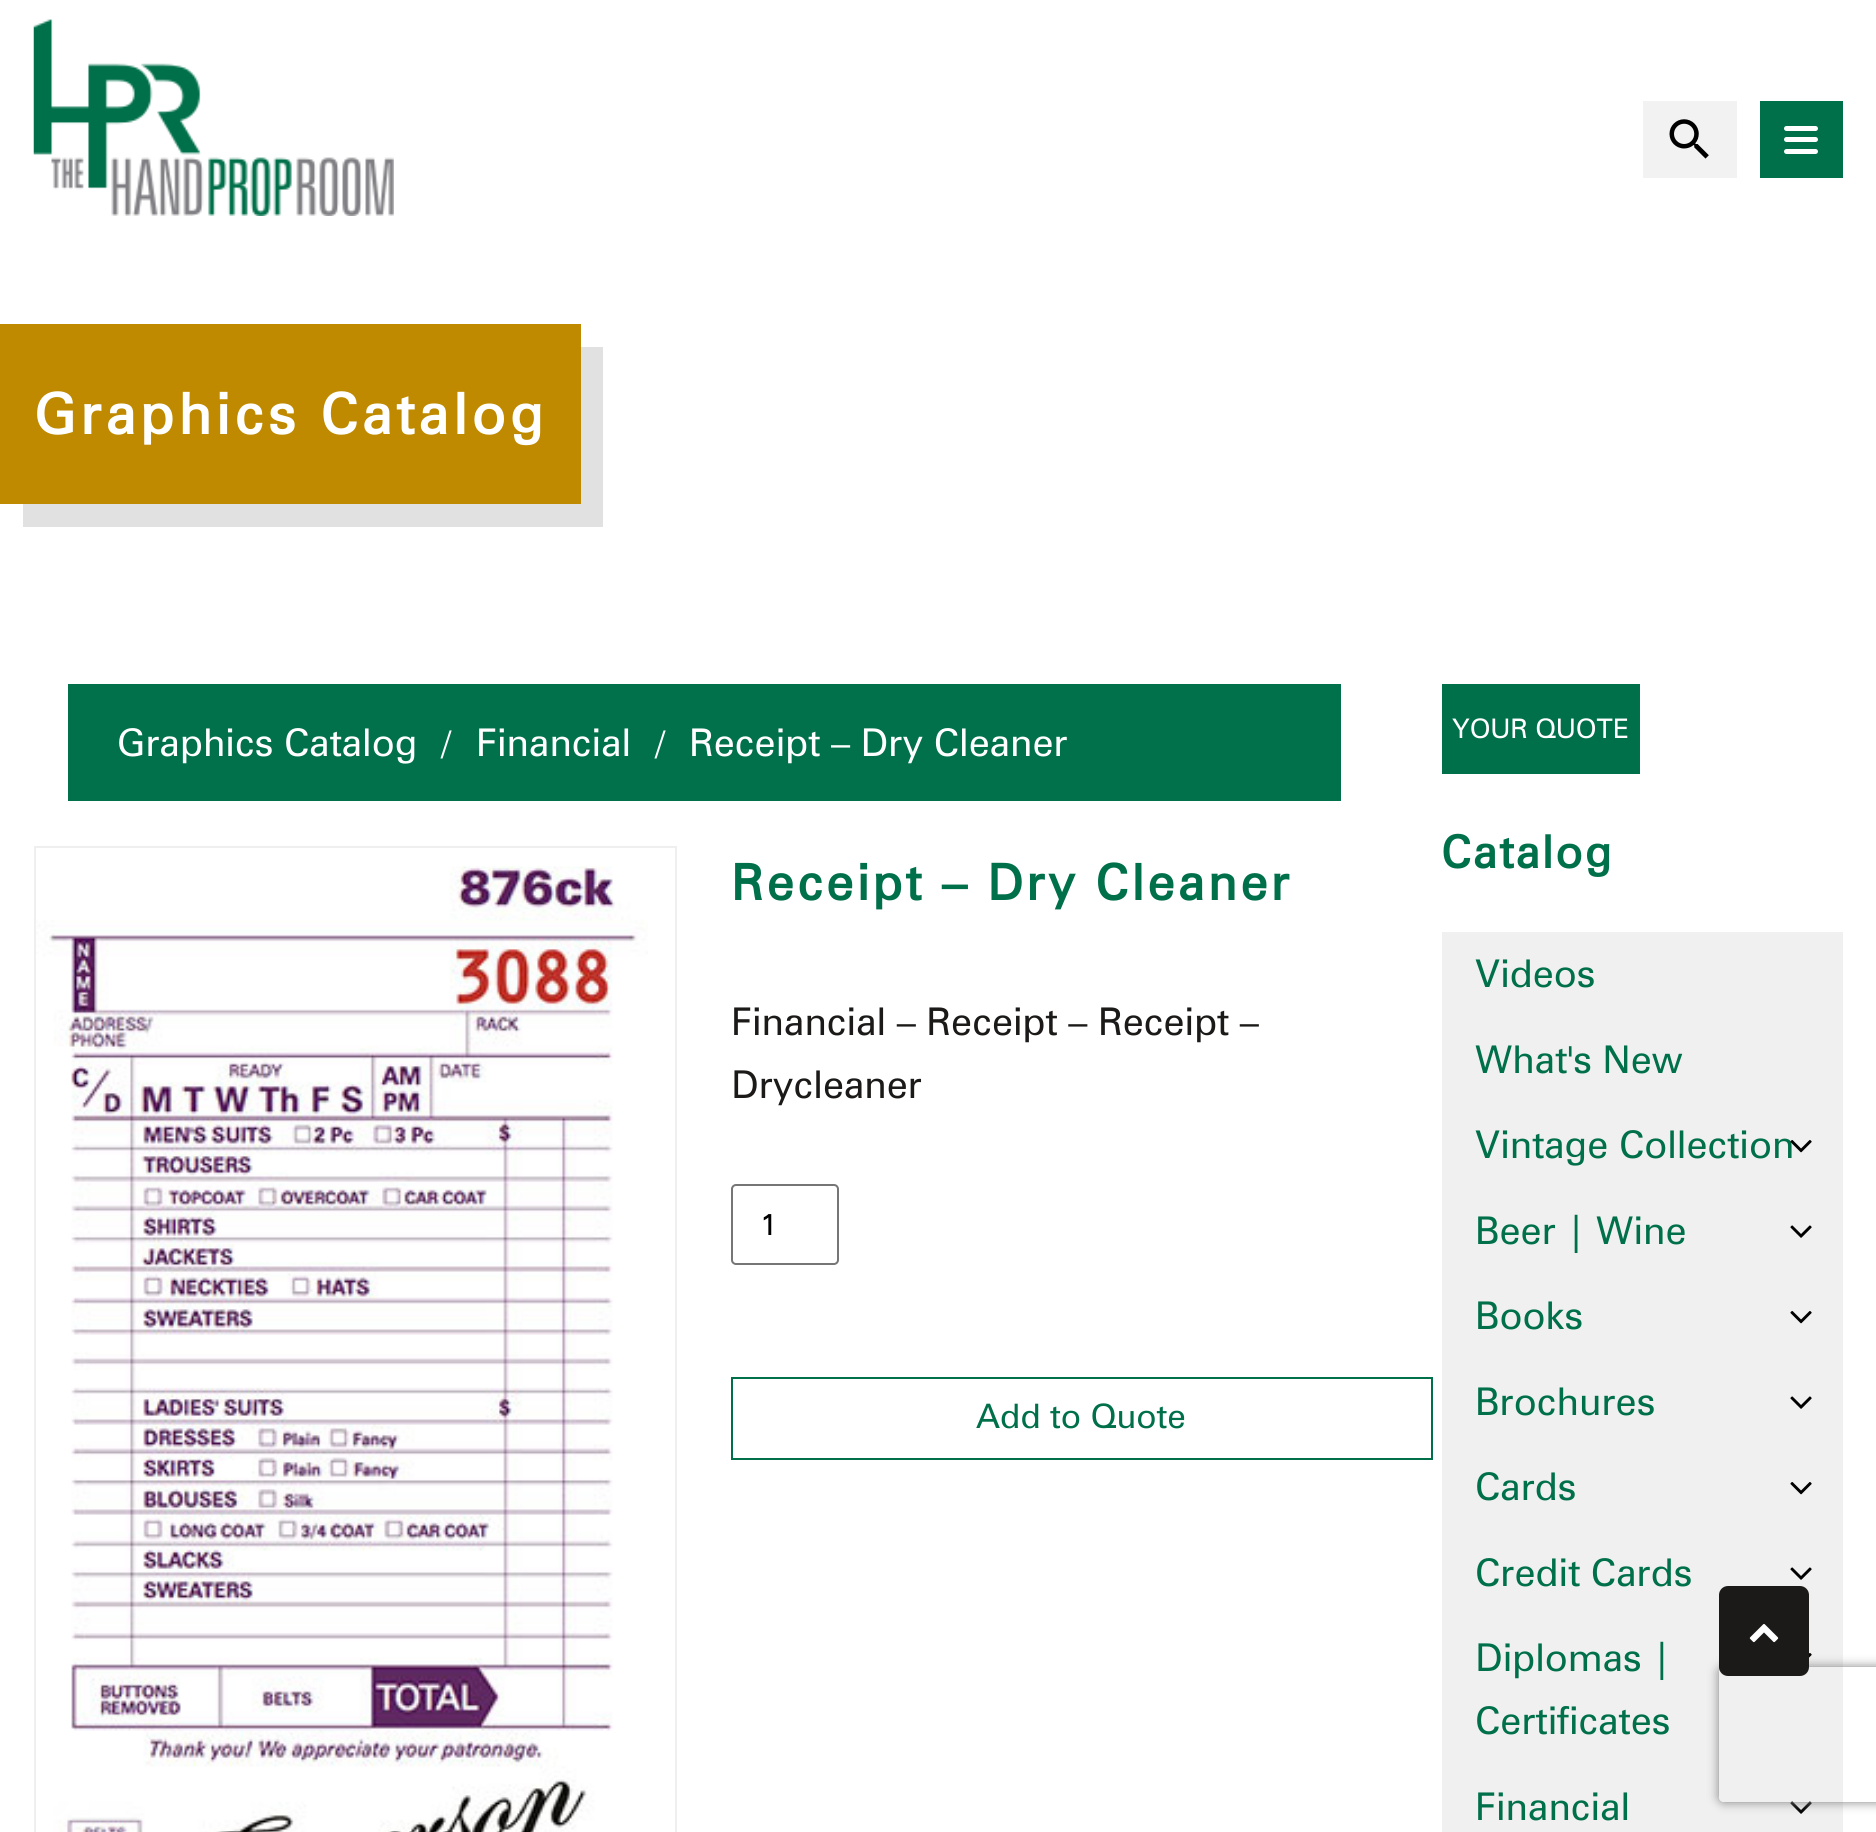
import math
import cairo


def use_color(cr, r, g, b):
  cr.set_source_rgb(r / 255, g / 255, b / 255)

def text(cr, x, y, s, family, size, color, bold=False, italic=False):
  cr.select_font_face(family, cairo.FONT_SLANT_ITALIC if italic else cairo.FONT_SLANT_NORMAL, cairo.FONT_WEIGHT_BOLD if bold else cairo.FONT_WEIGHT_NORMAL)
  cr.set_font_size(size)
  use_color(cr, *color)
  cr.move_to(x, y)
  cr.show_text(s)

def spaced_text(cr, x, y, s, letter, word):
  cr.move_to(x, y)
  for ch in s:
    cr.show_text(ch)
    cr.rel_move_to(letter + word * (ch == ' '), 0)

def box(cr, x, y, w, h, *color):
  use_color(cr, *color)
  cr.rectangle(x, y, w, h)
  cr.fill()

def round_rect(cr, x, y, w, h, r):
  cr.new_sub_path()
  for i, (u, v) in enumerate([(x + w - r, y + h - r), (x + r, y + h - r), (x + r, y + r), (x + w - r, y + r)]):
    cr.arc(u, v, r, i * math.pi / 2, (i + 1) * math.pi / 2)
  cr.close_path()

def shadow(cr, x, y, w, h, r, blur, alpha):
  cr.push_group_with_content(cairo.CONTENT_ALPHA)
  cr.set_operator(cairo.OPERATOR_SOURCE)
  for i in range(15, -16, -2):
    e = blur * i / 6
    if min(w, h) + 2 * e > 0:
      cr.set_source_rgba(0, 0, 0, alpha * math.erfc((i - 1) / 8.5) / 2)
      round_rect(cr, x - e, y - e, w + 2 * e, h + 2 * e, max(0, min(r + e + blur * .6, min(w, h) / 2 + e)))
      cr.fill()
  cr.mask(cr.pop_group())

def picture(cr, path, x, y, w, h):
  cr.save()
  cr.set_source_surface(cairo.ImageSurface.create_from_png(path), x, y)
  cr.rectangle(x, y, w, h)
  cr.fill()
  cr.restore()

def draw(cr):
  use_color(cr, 255, 255, 255)
  cr.paint()
  picture(cr, "img_01.png", 33, 19, 361, 197)
  box(cr, 1643, 101, 94, 77, 242, 242, 242)
  picture(cr, "img_02.png", 1669, 119, 40, 40)
  box(cr, 1760, 101, 83, 77, 0, 112, 74)
  use_color(cr, 255, 255, 255)
  round_rect(cr, 1784, 126, 34, 5, 2.5)
  cr.fill()
  round_rect(cr, 1784, 137, 34, 5, 2.5)
  cr.fill()
  round_rect(cr, 1784, 149, 34, 5, 2.5)
  cr.fill()
  use_color(cr, 225, 225, 225)
  cr.new_path()
  cr.move_to(23, 504)
  cr.line_to(23, 527)
  cr.line_to(603, 527)
  cr.line_to(603, 347)
  cr.line_to(580, 347)
  cr.line_to(580, 504)
  cr.close_path()
  cr.fill()
  box(cr, 0, 324, 581, 180, 191, 138, 0)
  box(cr, 68, 684, 1273, 117, 0, 113, 74)
  cr.rectangle(35, 847, 641, 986)
  use_color(cr, 239, 239, 239)
  cr.stroke()
  picture(cr, "img_03.png", 36, 866, 612, 966)
  round_rect(cr, 732, 1185, 106, 79, 4)
  use_color(cr, 118, 118, 118)
  cr.stroke()
  cr.rectangle(732, 1378, 700, 81)
  use_color(cr, 0, 112, 74)
  cr.stroke()
  box(cr, 1442, 684, 198, 90, 0, 112, 74)
  box(cr, 1442, 932, 401, 900, 240, 240, 240)
  picture(cr, "img_05.png", 1790, 1225, 22, 13)
  picture(cr, "img_06.png", 1790, 1311, 22, 13)
  picture(cr, "img_05.png", 1790, 1396, 22, 13)
  picture(cr, "img_06.png", 1790, 1482, 22, 13)
  picture(cr, "img_05.png", 1790, 1567, 22, 13)
  picture(cr, "img_07.png", 1809, 1653, 3, 5)
  picture(cr, "img_05.png", 1790, 1801, 22, 13)
  cr.save()
  cr.set_fill_rule(cairo.FILL_RULE_EVEN_ODD)
  cr.new_path()
  cr.move_to(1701, 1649)
  cr.line_to(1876, 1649)
  cr.line_to(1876, 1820)
  cr.line_to(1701, 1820)
  cr.close_path()
  cr.move_to(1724, 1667)
  cr.line_to(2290, 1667)
  cr.curve_to(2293, 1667, 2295, 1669, 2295, 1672)
  cr.line_to(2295, 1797)
  cr.curve_to(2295, 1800, 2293, 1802, 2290, 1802)
  cr.line_to(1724, 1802)
  cr.curve_to(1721, 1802, 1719, 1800, 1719, 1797)
  cr.line_to(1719, 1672)
  cr.curve_to(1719, 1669, 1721, 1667, 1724, 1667)
  cr.close_path()
  cr.clip()
  use_color(cr, 128, 128, 128)
  shadow(cr, 1719, 1667, 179, 135, 5, 5.5, 1)
  cr.restore()
  use_color(cr, 27, 26, 25)
  round_rect(cr, 1719, 1586, 90, 90, 9)
  cr.fill()
  picture(cr, "img_08.png", 1749, 1624, 30, 19)
  cr.select_font_face("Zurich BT", cairo.FONT_SLANT_NORMAL, cairo.FONT_WEIGHT_BOLD)
  cr.set_font_size(56.25)
  use_color(cr, 255, 255, 255)
  spaced_text(cr, 34, 434, "Graphics Catalog", 4.5, 0)
  text(cr, 117, 756, "Graphics Catalog", "Zurich BT", 38.25, (255, 255, 255))
  text(cr, 441, 756, "/", "Zurich BT", 35, (255, 255, 255))
  text(cr, 476, 756, "Financial", "Zurich BT", 38.25, (255, 255, 255))
  text(cr, 655, 756, "/", "Zurich BT", 35, (255, 255, 255))
  text(cr, 689, 756, "Receipt – Dry Cleaner", "Zurich BT", 38.25, (255, 255, 255))
  cr.select_font_face("Zurich BT", cairo.FONT_SLANT_NORMAL, cairo.FONT_WEIGHT_BOLD)
  cr.set_font_size(49.5)
  use_color(cr, 0, 112, 74)
  spaced_text(cr, 731, 900, "Receipt – Dry Cleaner", 3.4, 0)
  text(cr, 731, 1035, "Financial – Receipt – Receipt –", "Zurich BT", 38.25, (27, 26, 25))
  text(cr, 731, 1098, "Drycleaner", "Zurich BT", 38.25, (27, 26, 25))
  text(cr, 760, 1235, "1", "Zurich BT", 30, (0, 0, 0))
  text(cr, 976, 1428, "Add to Quote", "Zurich BT", 33.75, (0, 112, 74))
  text(cr, 1452, 738, "YOUR QUOTE", "Zurich BT", 27, (255, 255, 255))
  cr.select_font_face("Zurich BT", cairo.FONT_SLANT_NORMAL, cairo.FONT_WEIGHT_BOLD)
  cr.set_font_size(45)
  use_color(cr, 0, 112, 74)
  spaced_text(cr, 1441, 868, "Catalog", 2.25, 0)
  text(cr, 1475, 987, "Videos", "Zurich BT", 38.25, (0, 112, 74))
  text(cr, 1475, 1073, "What's New", "Zurich BT", 38.25, (0, 112, 74))
  text(cr, 1475, 1158, "Vintage Collection", "Zurich BT", 38.25, (0, 112, 74))
  picture(cr, "img_04.png", 1790, 1140, 22, 13)
  text(cr, 1475, 1244, "Beer | Wine", "Zurich BT", 38.25, (0, 112, 74))
  text(cr, 1475, 1329, "Books", "Zurich BT", 38.25, (0, 112, 74))
  text(cr, 1475, 1415, "Brochures", "Zurich BT", 38.25, (0, 112, 74))
  text(cr, 1475, 1500, "Cards", "Zurich BT", 38.25, (0, 112, 74))
  text(cr, 1475, 1586, "Credit Cards", "Zurich BT", 38.25, (0, 112, 74))
  text(cr, 1475, 1671, "Diplomas |", "Zurich BT", 38.25, (0, 112, 74))
  text(cr, 1475, 1734, "Certificates", "Zurich BT", 38.25, (0, 112, 74))
  text(cr, 1475, 1820, "Financial", "Zurich BT", 38.25, (0, 112, 74))


surface = cairo.ImageSurface(cairo.FORMAT_RGB24, 1876, 1832)
cr = cairo.Context(surface)
options = cairo.FontOptions()
options.set_hint_metrics(cairo.HINT_METRICS_OFF)
options.set_hint_style(cairo.HINT_STYLE_NONE)
cr.set_font_options(options)
cr.set_miter_limit(4)
draw(cr)
surface.write_to_png("out.png")
